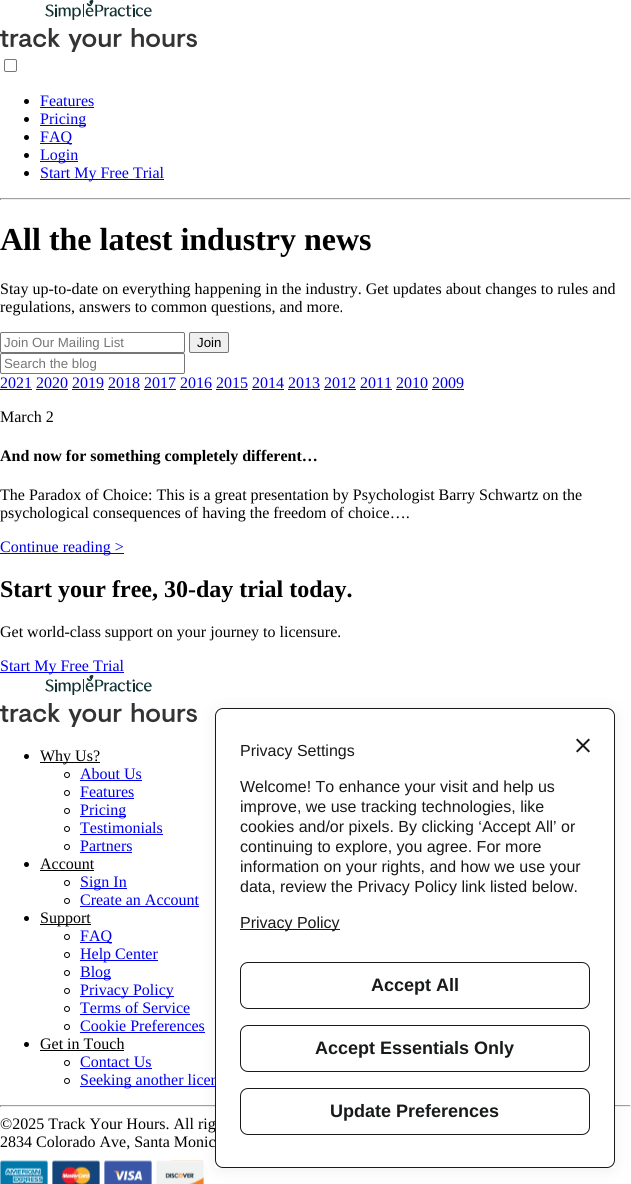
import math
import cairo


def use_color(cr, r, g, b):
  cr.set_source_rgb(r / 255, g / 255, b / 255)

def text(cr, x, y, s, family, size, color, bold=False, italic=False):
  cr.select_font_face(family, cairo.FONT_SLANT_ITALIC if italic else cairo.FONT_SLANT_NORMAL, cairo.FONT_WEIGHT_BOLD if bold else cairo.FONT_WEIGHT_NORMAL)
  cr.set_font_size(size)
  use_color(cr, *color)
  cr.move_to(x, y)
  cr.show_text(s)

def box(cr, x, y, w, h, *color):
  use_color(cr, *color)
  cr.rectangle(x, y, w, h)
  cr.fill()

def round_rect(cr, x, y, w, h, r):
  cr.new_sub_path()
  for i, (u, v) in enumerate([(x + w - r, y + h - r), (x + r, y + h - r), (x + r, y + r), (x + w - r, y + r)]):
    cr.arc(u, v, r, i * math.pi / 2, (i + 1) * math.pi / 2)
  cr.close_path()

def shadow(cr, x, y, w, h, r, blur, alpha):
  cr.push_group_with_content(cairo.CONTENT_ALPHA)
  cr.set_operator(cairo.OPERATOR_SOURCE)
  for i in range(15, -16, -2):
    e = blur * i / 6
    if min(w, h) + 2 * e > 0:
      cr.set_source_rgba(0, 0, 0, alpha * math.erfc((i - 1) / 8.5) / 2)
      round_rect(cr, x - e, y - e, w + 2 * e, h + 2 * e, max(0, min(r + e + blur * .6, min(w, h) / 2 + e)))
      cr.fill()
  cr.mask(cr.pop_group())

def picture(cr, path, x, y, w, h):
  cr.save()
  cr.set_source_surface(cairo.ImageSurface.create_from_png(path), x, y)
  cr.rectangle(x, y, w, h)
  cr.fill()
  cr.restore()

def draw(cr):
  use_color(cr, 255, 255, 255)
  cr.paint()
  picture(cr, "img_01.png", 0, 0, 197, 52)
  round_rect(cr, 4.5, 59.5, 12, 12, 1.5)
  use_color(cr, 118, 118, 118)
  cr.set_line_width(1)
  cr.stroke()
  use_color(cr, 0, 0, 0)
  cr.arc(26.5, 101.5, 2.5, 0, 2 * math.pi)
  cr.fill()
  box(cr, 40, 107, 54, 1, 0, 0, 238)
  use_color(cr, 0, 0, 0)
  cr.arc(26.5, 119.5, 2.5, 0, 2 * math.pi)
  cr.fill()
  box(cr, 40, 125, 46, 1, 0, 0, 238)
  use_color(cr, 0, 0, 0)
  cr.arc(26.5, 137.5, 2.5, 0, 2 * math.pi)
  cr.fill()
  box(cr, 40, 143, 32, 1, 0, 0, 238)
  use_color(cr, 0, 0, 0)
  cr.arc(26.5, 155.5, 2.5, 0, 2 * math.pi)
  cr.fill()
  box(cr, 40, 161, 38, 1, 0, 0, 238)
  use_color(cr, 0, 0, 0)
  cr.arc(26.5, 173.5, 2.5, 0, 2 * math.pi)
  cr.fill()
  box(cr, 40, 179, 124, 1, 0, 0, 238)
  box(cr, 0, 198, 631, 1, 159, 159, 159)
  box(cr, 630, 198, 1, 2, 238, 238, 238)
  box(cr, 0, 199, 631, 1, 238, 238, 238)
  box(cr, 0, 198, 1, 2, 159, 159, 159)
  round_rect(cr, 0.5, 332.5, 184, 20, 1.5)
  use_color(cr, 118, 118, 118)
  cr.stroke()
  use_color(cr, 239, 239, 239)
  round_rect(cr, 189.5, 332.5, 39, 20, 1.5)
  cr.fill_preserve()
  use_color(cr, 118, 118, 118)
  cr.stroke()
  round_rect(cr, 0.5, 353.5, 184, 20, 1.5)
  cr.stroke()
  box(cr, 0, 389, 32, 1, 0, 0, 238)
  box(cr, 36, 389, 32, 1, 0, 0, 238)
  box(cr, 72, 389, 32, 1, 0, 0, 238)
  box(cr, 108, 389, 32, 1, 0, 0, 238)
  box(cr, 144, 389, 32, 1, 0, 0, 238)
  box(cr, 180, 389, 32, 1, 0, 0, 238)
  box(cr, 216, 389, 32, 1, 0, 0, 238)
  box(cr, 252, 389, 32, 1, 0, 0, 238)
  box(cr, 288, 389, 32, 1, 0, 0, 238)
  box(cr, 324, 389, 32, 1, 0, 0, 238)
  box(cr, 360, 389, 32, 1, 0, 0, 238)
  box(cr, 396, 389, 32, 1, 0, 0, 238)
  box(cr, 432, 389, 32, 1, 0, 0, 238)
  box(cr, 0, 553, 124, 1, 0, 0, 238)
  box(cr, 0, 672, 124, 1, 0, 0, 238)
  picture(cr, "img_01.png", 0, 675, 197, 52)
  use_color(cr, 0, 0, 0)
  cr.arc(26.5, 756.5, 2.5, 0, 2 * math.pi)
  cr.fill()
  box(cr, 40, 762, 60, 1, 0, 0, 0)
  cr.arc(67, 775, 2.5, 0, 2 * math.pi)
  cr.stroke()
  box(cr, 80, 780, 62, 1, 0, 0, 238)
  cr.arc(67, 793, 2.5, 0, 2 * math.pi)
  use_color(cr, 0, 0, 0)
  cr.stroke()
  box(cr, 80, 798, 54, 1, 0, 0, 238)
  cr.arc(67, 811, 2.5, 0, 2 * math.pi)
  use_color(cr, 0, 0, 0)
  cr.stroke()
  box(cr, 80, 816, 46, 1, 0, 0, 238)
  cr.arc(67, 829, 2.5, 0, 2 * math.pi)
  use_color(cr, 0, 0, 0)
  cr.stroke()
  box(cr, 80, 834, 83, 1, 0, 0, 238)
  cr.arc(67, 847, 2.5, 0, 2 * math.pi)
  use_color(cr, 0, 0, 0)
  cr.stroke()
  box(cr, 80, 852, 52, 1, 0, 0, 238)
  use_color(cr, 0, 0, 0)
  cr.arc(26.5, 864.5, 2.5, 0, 2 * math.pi)
  cr.fill()
  box(cr, 40, 870, 54, 1, 0, 0, 0)
  cr.arc(67, 883, 2.5, 0, 2 * math.pi)
  cr.stroke()
  box(cr, 80, 888, 47, 1, 0, 0, 238)
  cr.arc(67, 901, 2.5, 0, 2 * math.pi)
  use_color(cr, 0, 0, 0)
  cr.stroke()
  box(cr, 80, 906, 119, 1, 0, 0, 238)
  use_color(cr, 0, 0, 0)
  cr.arc(26.5, 918.5, 2.5, 0, 2 * math.pi)
  cr.fill()
  box(cr, 40, 924, 51, 1, 0, 0, 0)
  cr.arc(67, 937, 2.5, 0, 2 * math.pi)
  cr.stroke()
  box(cr, 80, 942, 32, 1, 0, 0, 238)
  cr.arc(67, 955, 2.5, 0, 2 * math.pi)
  use_color(cr, 0, 0, 0)
  cr.stroke()
  box(cr, 80, 960, 78, 1, 0, 0, 238)
  cr.arc(67, 973, 2.5, 0, 2 * math.pi)
  use_color(cr, 0, 0, 0)
  cr.stroke()
  box(cr, 80, 978, 31, 1, 0, 0, 238)
  cr.arc(67, 991, 2.5, 0, 2 * math.pi)
  use_color(cr, 0, 0, 0)
  cr.stroke()
  box(cr, 80, 996, 94, 1, 0, 0, 238)
  cr.arc(67, 1009, 2.5, 0, 2 * math.pi)
  use_color(cr, 0, 0, 0)
  cr.stroke()
  box(cr, 80, 1014, 110, 1, 0, 0, 238)
  cr.arc(67, 1027, 2.5, 0, 2 * math.pi)
  use_color(cr, 0, 0, 0)
  cr.stroke()
  box(cr, 80, 1032, 125, 1, 0, 0, 238)
  use_color(cr, 0, 0, 0)
  cr.arc(26.5, 1044.5, 2.5, 0, 2 * math.pi)
  cr.fill()
  box(cr, 40, 1050, 84, 1, 0, 0, 0)
  cr.arc(67, 1063, 2.5, 0, 2 * math.pi)
  cr.stroke()
  box(cr, 80, 1068, 72, 1, 0, 0, 238)
  cr.arc(67, 1081, 2.5, 0, 2 * math.pi)
  use_color(cr, 0, 0, 0)
  cr.stroke()
  box(cr, 80, 1086, 135, 1, 0, 0, 238)
  box(cr, 0, 1105, 631, 1, 159, 159, 159)
  box(cr, 630, 1105, 1, 2, 238, 238, 238)
  box(cr, 0, 1106, 631, 1, 238, 238, 238)
  box(cr, 0, 1105, 1, 2, 159, 159, 159)
  picture(cr, "img_02.png", 0, 1160, 48, 24)
  picture(cr, "img_03.png", 52, 1160, 48, 24)
  picture(cr, "img_04.png", 104, 1160, 48, 24)
  picture(cr, "img_05.png", 156, 1160, 48, 24)
  cr.save()
  cr.set_fill_rule(cairo.FILL_RULE_EVEN_ODD)
  cr.new_path()
  cr.move_to(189, 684)
  cr.line_to(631, 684)
  cr.line_to(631, 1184)
  cr.line_to(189, 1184)
  cr.close_path()
  cr.move_to(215, 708)
  cr.line_to(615, 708)
  cr.line_to(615, 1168)
  cr.line_to(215, 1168)
  cr.close_path()
  cr.clip()
  use_color(cr, 1, 1, 63)
  shadow(cr, 219, 714, 392, 452, 0, 9.5, 0.1)
  cr.restore()
  text(cr, 40, 106, "Features", "Liberation Serif", 16, (0, 0, 238))
  text(cr, 40, 124, "Pricing", "Liberation Serif", 16, (0, 0, 238))
  text(cr, 40, 142, "FAQ", "Liberation Serif", 16, (0, 0, 238))
  text(cr, 40, 160, "Login", "Liberation Serif", 16, (0, 0, 238))
  text(cr, 40, 178, "Start My Free Trial", "Liberation Serif", 16, (0, 0, 238))
  text(cr, 0, 250, "All the latest industry news", "Liberation Serif", 32, (0, 0, 0), bold=True)
  text(cr, 0, 294, "Stay up-to-date on everything happening in the industry. Get updates about changes to rules and", "Liberation Serif", 16, (0, 0, 0))
  text(cr, 0, 312, "regulations, answers to common questions, and more.", "Liberation Serif", 16, (0, 0, 0))
  text(cr, 4, 347, "Join Our Mailing List", "Liberation Sans", 13.25, (117, 117, 117))
  text(cr, 197, 347, "Join", "Liberation Sans", 13.25, (0, 0, 0))
  text(cr, 4, 368, "Search the blog", "Liberation Sans", 13.25, (117, 117, 117))
  text(cr, 0, 388, "2021 2020 2019 2018 2017 2016 2015 2014 2013 2012 2011 2010 2009", "Liberation Serif", 16, (0, 0, 238))
  text(cr, 0, 422, "March 2", "Liberation Serif", 16, (0, 0, 0))
  text(cr, 0, 461, "And now for something completely different…", "Liberation Serif", 16, (0, 0, 0), bold=True)
  text(cr, 0, 500, "The Paradox of Choice: This is a great presentation by Psychologist Barry Schwartz on the", "Liberation Serif", 16, (0, 0, 0))
  text(cr, 0, 518, "psychological consequences of having the freedom of choice….", "Liberation Serif", 16, (0, 0, 0))
  text(cr, 0, 552, "Continue reading >", "Liberation Serif", 16, (0, 0, 238))
  text(cr, 0, 597, "Start your free, 30-day trial today.", "Liberation Serif", 24, (0, 0, 0), bold=True)
  text(cr, 0, 637, "Get world-class support on your journey to licensure.", "Liberation Serif", 16, (0, 0, 0))
  text(cr, 0, 671, "Start My Free Trial", "Liberation Serif", 16, (0, 0, 238))
  text(cr, 40, 761, "Why Us?", "Liberation Serif", 16, (0, 0, 0))
  text(cr, 80, 779, "About Us", "Liberation Serif", 16, (0, 0, 238))
  text(cr, 80, 797, "Features", "Liberation Serif", 16, (0, 0, 238))
  text(cr, 80, 815, "Pricing", "Liberation Serif", 16, (0, 0, 238))
  text(cr, 80, 833, "Testimonials", "Liberation Serif", 16, (0, 0, 238))
  text(cr, 80, 851, "Partners", "Liberation Serif", 16, (0, 0, 238))
  text(cr, 40, 869, "Account", "Liberation Serif", 16, (0, 0, 0))
  text(cr, 80, 887, "Sign In", "Liberation Serif", 16, (0, 0, 238))
  text(cr, 80, 905, "Create an Account", "Liberation Serif", 16, (0, 0, 238))
  text(cr, 40, 923, "Support", "Liberation Serif", 16, (0, 0, 0))
  text(cr, 80, 941, "FAQ", "Liberation Serif", 16, (0, 0, 238))
  text(cr, 80, 959, "Help Center", "Liberation Serif", 16, (0, 0, 238))
  text(cr, 80, 977, "Blog", "Liberation Serif", 16, (0, 0, 238))
  text(cr, 80, 995, "Privacy Policy", "Liberation Serif", 16, (0, 0, 238))
  text(cr, 80, 1013, "Terms of Service", "Liberation Serif", 16, (0, 0, 238))
  text(cr, 80, 1031, "Cookie Preferences", "Liberation Serif", 16, (0, 0, 238))
  text(cr, 40, 1049, "Get in Touch", "Liberation Serif", 16, (0, 0, 0))
  text(cr, 80, 1067, "Contact Us", "Liberation Serif", 16, (0, 0, 238))
  text(cr, 80, 1085, "Seeking another licen", "Liberation Serif", 16, (0, 0, 238))
  text(cr, 0, 1129, "©2025 Track Your Hours. All rig", "Liberation Serif", 16, (0, 0, 0))
  text(cr, 0, 1147, "2834 Colorado Ave, Santa Monic", "Liberation Serif", 16, (0, 0, 0))
  use_color(cr, 255, 255, 255)
  round_rect(cr, 215.5, 708.5, 399, 459, 7.5)
  cr.fill_preserve()
  use_color(cr, 23, 25, 26)
  cr.stroke()
  text(cr, 240, 756, "Privacy Settings", "Liberation Sans", 16, (23, 25, 26))
  picture(cr, "img_06.png", 576, 738, 14, 15)
  text(cr, 240, 792, "Welcome! To enhance your visit and help us", "Liberation Sans", 16, (23, 25, 26))
  text(cr, 240, 812, "improve, we use tracking technologies, like", "Liberation Sans", 16, (23, 25, 26))
  text(cr, 240, 832, "cookies and/or pixels. By clicking ‘Accept All’ or", "Liberation Sans", 16, (23, 25, 26))
  text(cr, 240, 852, "continuing to explore, you agree. For more", "Liberation Sans", 16, (23, 25, 26))
  text(cr, 240, 872, "information on your rights, and how we use your", "Liberation Sans", 16, (23, 25, 26))
  text(cr, 240, 892, "data, review the Privacy Policy link listed below.", "Liberation Sans", 16, (23, 25, 26))
  box(cr, 240, 929, 100, 1, 23, 25, 26)
  text(cr, 240, 928, "Privacy Policy", "Liberation Sans", 16, (23, 25, 26))
  round_rect(cr, 240.5, 962.5, 349, 46, 7.5)
  cr.stroke()
  text(cr, 371, 991, "Accept All", "Liberation Sans", 18, (23, 25, 26), bold=True)
  round_rect(cr, 240.5, 1025.5, 349, 46, 7.5)
  cr.stroke()
  text(cr, 315, 1054, "Accept Essentials Only", "Liberation Sans", 18, (23, 25, 26), bold=True)
  round_rect(cr, 240.5, 1088.5, 349, 46, 7.5)
  cr.stroke()
  text(cr, 330, 1117, "Update Preferences", "Liberation Sans", 18, (23, 25, 26), bold=True)


surface = cairo.ImageSurface(cairo.FORMAT_RGB24, 631, 1184)
cr = cairo.Context(surface)
options = cairo.FontOptions()
options.set_hint_metrics(cairo.HINT_METRICS_OFF)
options.set_hint_style(cairo.HINT_STYLE_NONE)
cr.set_font_options(options)
cr.set_miter_limit(4)
draw(cr)
surface.write_to_png("out.png")
